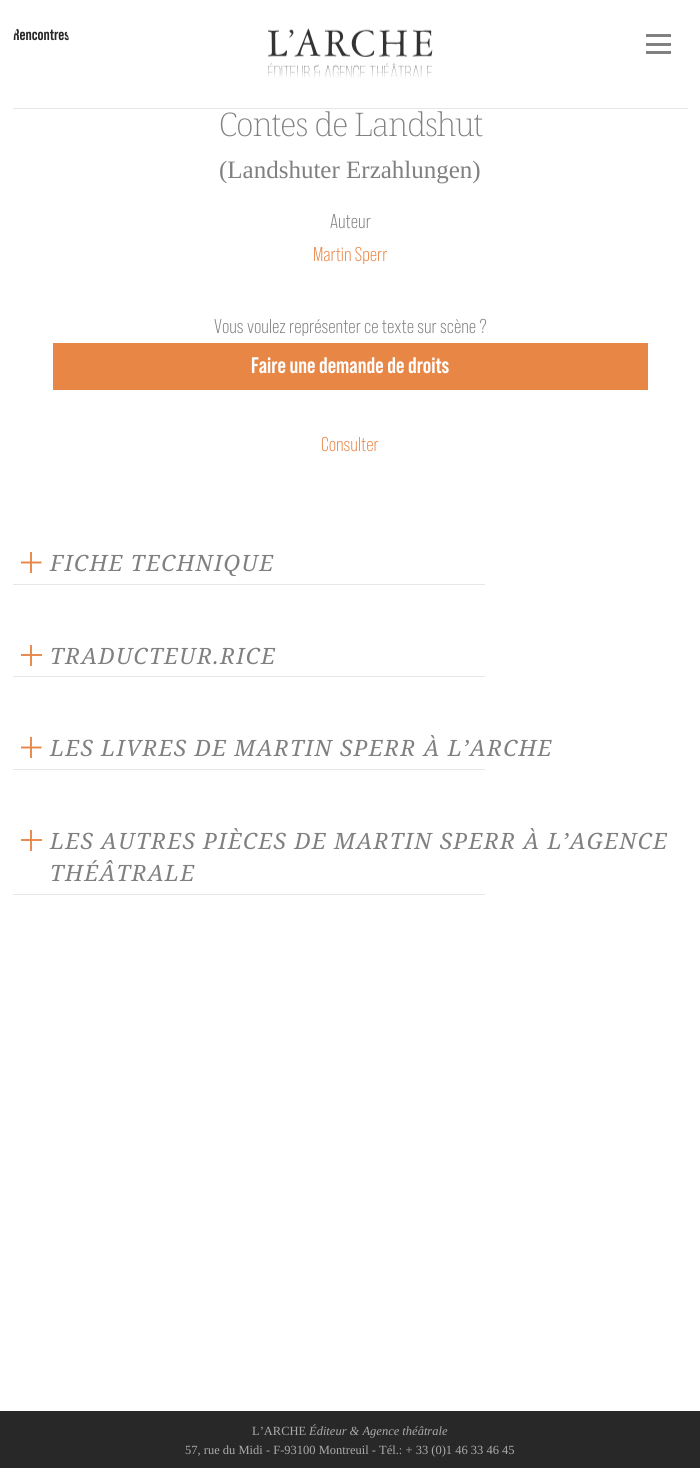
import math
import cairo


def use_color(cr, r, g, b):
  cr.set_source_rgb(r / 255, g / 255, b / 255)

def text(cr, x, y, s, family, size, color, bold=False, italic=False):
  cr.select_font_face(family, cairo.FONT_SLANT_ITALIC if italic else cairo.FONT_SLANT_NORMAL, cairo.FONT_WEIGHT_BOLD if bold else cairo.FONT_WEIGHT_NORMAL)
  cr.set_font_size(size)
  use_color(cr, *color)
  cr.move_to(x, y)
  cr.show_text(s)

def spaced_text(cr, x, y, s, letter, word):
  cr.move_to(x, y)
  for ch in s:
    cr.show_text(ch)
    cr.rel_move_to(letter + word * (ch == ' '), 0)

def box(cr, x, y, w, h, *color):
  use_color(cr, *color)
  cr.rectangle(x, y, w, h)
  cr.fill()

def round_rect(cr, x, y, w, h, r):
  cr.new_sub_path()
  for i, (u, v) in enumerate([(x + w - r, y + h - r), (x + r, y + h - r), (x + r, y + r), (x + w - r, y + r)]):
    cr.arc(u, v, r, i * math.pi / 2, (i + 1) * math.pi / 2)
  cr.close_path()

def picture(cr, path, x, y, w, h):
  cr.save()
  cr.set_source_surface(cairo.ImageSurface.create_from_png(path), x, y)
  cr.rectangle(x, y, w, h)
  cr.fill()
  cr.restore()

def draw(cr):
  use_color(cr, 255, 255, 255)
  cr.paint()
  box(cr, 21, 839, 21, 2, 233, 140, 79)
  box(cr, 21, 654, 21, 2, 233, 140, 79)
  box(cr, 13, 108, 675, 1, 230, 230, 230)
  picture(cr, "img_01.png", 268, 28, 165, 50)
  box(cr, 646, 51, 25, 3, 128, 128, 128)
  box(cr, 646, 43, 25, 3, 128, 128, 128)
  box(cr, 646, 34, 25, 3, 128, 128, 128)
  box(cr, 53, 343, 595, 47, 232, 134, 70)
  box(cr, 30, 552, 2, 21, 233, 140, 79)
  cr.new_path()
  cr.move_to(21, 562.5)
  cr.line_to(41.5, 562.5)
  use_color(cr, 232, 134, 70)
  cr.set_line_width(1.9)
  cr.stroke()
  box(cr, 13, 584, 472, 1, 230, 230, 230)
  box(cr, 30, 645, 2, 21, 233, 140, 79)
  box(cr, 30, 654, 2, 2, 232, 134, 70)
  box(cr, 13, 676, 472, 1, 230, 230, 230)
  box(cr, 30, 737, 2, 21, 233, 140, 79)
  cr.new_path()
  cr.move_to(21, 747.5)
  cr.line_to(41.5, 747.5)
  use_color(cr, 232, 134, 70)
  cr.stroke()
  box(cr, 13, 769, 472, 1, 230, 230, 230)
  box(cr, 30, 830, 2, 21, 233, 140, 79)
  box(cr, 30, 839, 2, 2, 232, 134, 70)
  box(cr, 13, 894, 472, 1, 230, 230, 230)
  box(cr, 0, 1411, 700, 57, 40, 40, 40)
  cr.save()
  round_rect(cr, 13, 15, 56, 56, 28)
  cr.clip()
  text(cr, 13, 40, "Rencontres", "Bebas Neue", 16, (38, 38, 38), bold=True)
  cr.restore()
  cr.select_font_face("Noto Serif ExtraLight")
  cr.set_font_size(32.5)
  use_color(cr, 128, 128, 128)
  spaced_text(cr, 219, 136, "Contes de Landshut", -1.25, 0)
  text(cr, 219, 178, "(Landshuter Erzahlungen)", "Liberation Serif", 25, (128, 128, 128))
  text(cr, 330, 228, "Auteur", "Bebas Neue", 20, (128, 128, 128))
  text(cr, 313, 261, "Martin Sperr", "Bebas Neue", 20, (232, 134, 70))
  text(cr, 214, 333, "Vous voulez représenter ce texte sur scène ?", "Bebas Neue", 20, (128, 128, 128))
  text(cr, 251, 373, "Faire une demande de droits", "Bebas Neue", 22.5, (255, 255, 255), bold=True)
  text(cr, 321, 451, "Consulter", "Bebas Neue", 20, (232, 134, 70))
  cr.select_font_face("Noto Serif", cairo.FONT_SLANT_ITALIC)
  cr.set_font_size(22.5)
  use_color(cr, 128, 128, 128)
  spaced_text(cr, 50, 571, "FICHE TECHNIQUE", 1.25, 0)
  spaced_text(cr, 50, 664, "TRADUCTEUR.RICE", 1.25, 0)
  spaced_text(cr, 50, 756, "LES LIVRES DE MARTIN SPERR À L’ARCHE", 1.25, 0)
  spaced_text(cr, 50, 849, "LES AUTRES PIÈCES DE MARTIN SPERR À L’AGENCE", 1.25, 0)
  spaced_text(cr, 50, 881, "THÉÂTRALE", 1.25, 0)
  text(cr, 252, 1435, "L’ARCHE", "Liberation Serif", 12.5, (170, 170, 170))
  text(cr, 309, 1435, "Éditeur & Agence théâtrale", "Liberation Serif", 12.5, (170, 170, 170), italic=True)
  text(cr, 185, 1454, "57, rue du Midi - F-93100 Montreuil - Tél.: + 33 (0)1 46 33 46 45", "Liberation Serif", 12.5, (170, 170, 170))


surface = cairo.ImageSurface(cairo.FORMAT_RGB24, 700, 1468)
cr = cairo.Context(surface)
options = cairo.FontOptions()
options.set_hint_metrics(cairo.HINT_METRICS_OFF)
options.set_hint_style(cairo.HINT_STYLE_NONE)
cr.set_font_options(options)
cr.set_miter_limit(4)
draw(cr)
surface.write_to_png("out.png")
